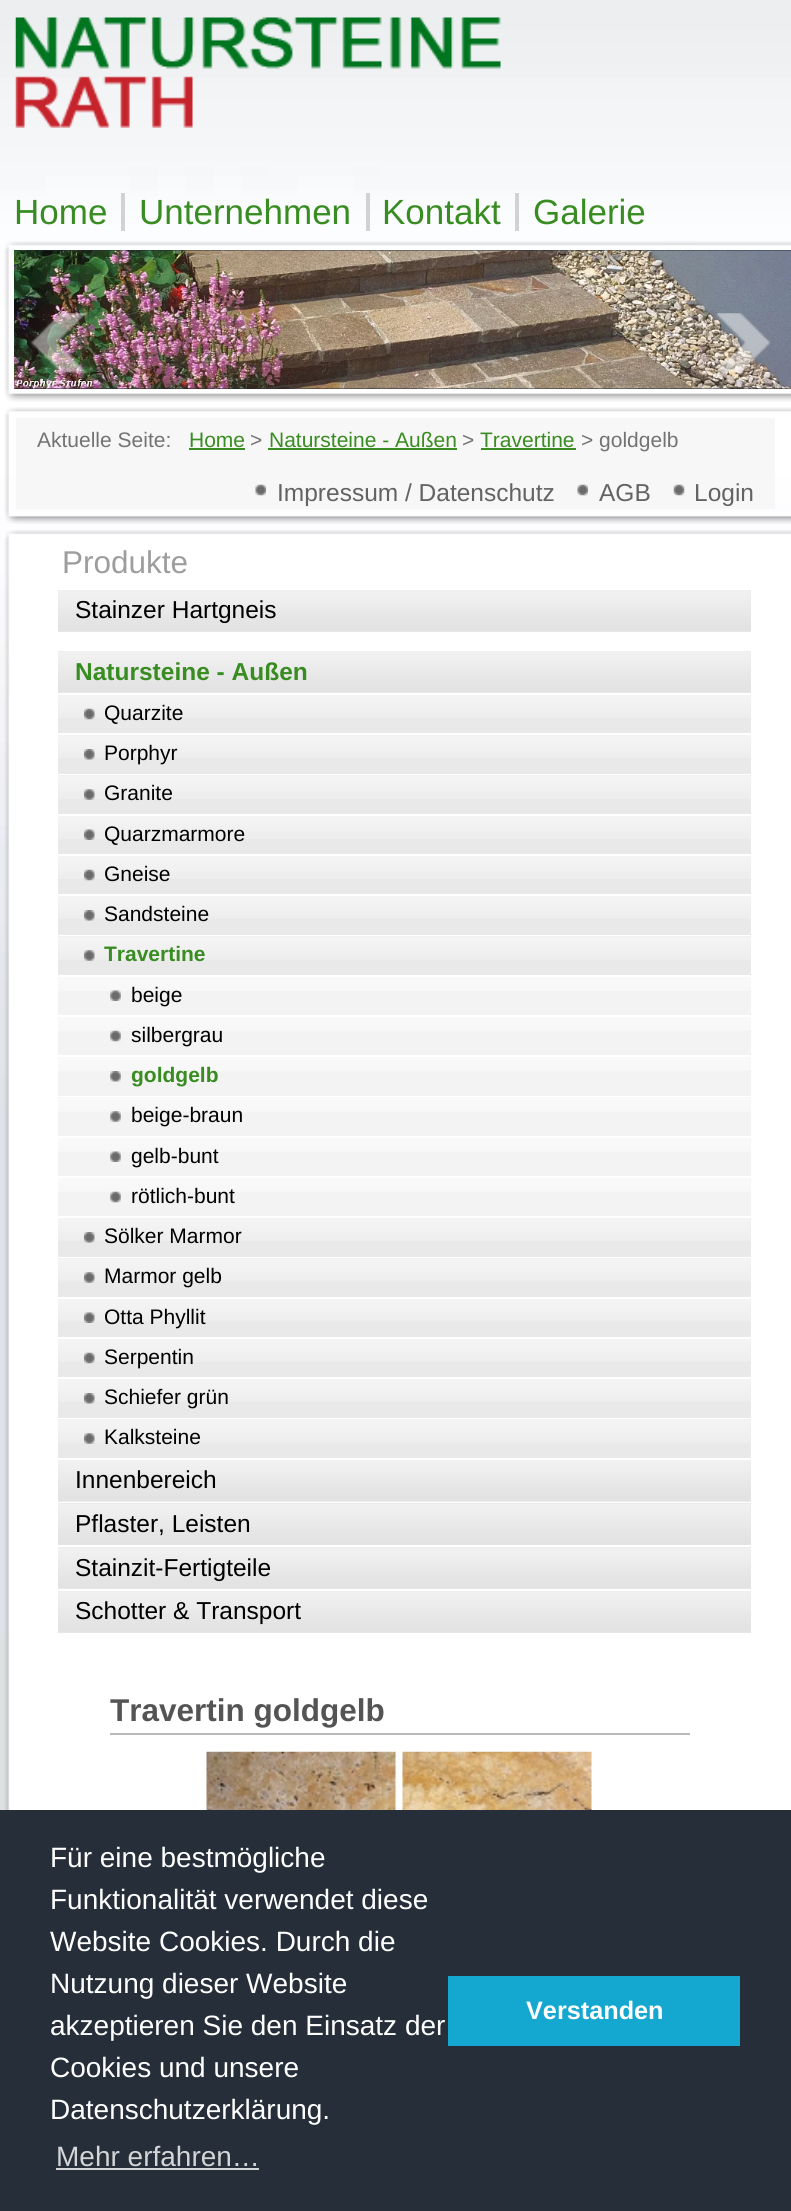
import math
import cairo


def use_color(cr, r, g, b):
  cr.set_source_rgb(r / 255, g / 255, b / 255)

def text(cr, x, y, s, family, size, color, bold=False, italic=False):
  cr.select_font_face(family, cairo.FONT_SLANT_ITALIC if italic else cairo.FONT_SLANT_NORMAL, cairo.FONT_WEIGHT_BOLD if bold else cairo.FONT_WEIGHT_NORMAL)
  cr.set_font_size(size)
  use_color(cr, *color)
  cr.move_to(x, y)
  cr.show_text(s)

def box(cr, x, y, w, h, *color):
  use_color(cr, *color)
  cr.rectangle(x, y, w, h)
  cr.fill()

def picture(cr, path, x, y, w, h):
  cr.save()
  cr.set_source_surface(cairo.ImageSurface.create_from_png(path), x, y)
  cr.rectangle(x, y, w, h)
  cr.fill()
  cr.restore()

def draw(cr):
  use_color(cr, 223, 224, 226)
  cr.paint()
  picture(cr, "img_01.png", 0, 0, 791, 1633)
  picture(cr, "img_02.png", 15, 17, 486, 111)
  box(cr, 121, 193, 4, 38, 210, 210, 210)
  box(cr, 366, 193, 4, 38, 210, 210, 210)
  box(cr, 515, 193, 4, 38, 210, 210, 210)
  picture(cr, "img_03.png", 5, 241, 786, 8)
  picture(cr, "img_04.png", 4, 248, 5, 143)
  box(cr, 14, 250, 777, 139, 32, 40, 52)
  picture(cr, "img_05.png", 14, 250, 777, 139)
  picture(cr, "img_06.png", 31, 313, 57, 60)
  picture(cr, "img_07.png", 717, 313, 53, 60)
  picture(cr, "img_08.png", 5, 390, 786, 12)
  picture(cr, "img_09.png", 5, 407, 786, 8)
  picture(cr, "img_10.png", 4, 414, 5, 99)
  box(cr, 16, 418, 759, 91, 247, 247, 247)
  box(cr, 189, 448, 56, 2, 57, 140, 33)
  box(cr, 268, 448, 189, 2, 57, 140, 33)
  box(cr, 481, 448, 95, 2, 57, 140, 33)
  picture(cr, "img_11.png", 255, 484, 11, 12)
  picture(cr, "img_11.png", 577, 484, 11, 12)
  picture(cr, "img_12.png", 673, 484, 12, 12)
  picture(cr, "img_13.png", 5, 512, 786, 12)
  picture(cr, "img_14.png", 5, 530, 786, 7)
  picture(cr, "img_15.png", 4, 537, 787, 1273)
  box(cr, 58, 590, 693, 42, 227, 227, 227)
  picture(cr, "img_16.png", 58, 590, 693, 42)
  box(cr, 58, 651, 693, 42, 227, 227, 227)
  picture(cr, "img_17.png", 58, 651, 693, 42)
  box(cr, 58, 695, 693, 38, 233, 233, 233)
  picture(cr, "img_18.png", 58, 695, 693, 23)
  picture(cr, "img_19.png", 84, 708, 11, 12)
  box(cr, 58, 735, 693, 39, 233, 233, 233)
  picture(cr, "img_20.png", 58, 735, 693, 23)
  picture(cr, "img_21.png", 84, 749, 11, 11)
  box(cr, 58, 775, 693, 39, 233, 233, 233)
  picture(cr, "img_22.png", 58, 775, 693, 24)
  picture(cr, "img_23.png", 84, 789, 11, 11)
  box(cr, 58, 816, 693, 38, 233, 233, 233)
  picture(cr, "img_24.png", 58, 816, 693, 23)
  picture(cr, "img_25.png", 84, 829, 11, 11)
  box(cr, 58, 856, 693, 38, 233, 233, 233)
  picture(cr, "img_26.png", 58, 856, 693, 23)
  picture(cr, "img_19.png", 84, 869, 11, 12)
  box(cr, 58, 896, 693, 39, 233, 233, 233)
  picture(cr, "img_27.png", 58, 896, 693, 23)
  picture(cr, "img_21.png", 84, 910, 11, 11)
  box(cr, 58, 936, 693, 39, 233, 233, 233)
  picture(cr, "img_28.png", 58, 936, 693, 24)
  picture(cr, "img_23.png", 84, 950, 11, 11)
  box(cr, 58, 977, 693, 38, 243, 243, 243)
  picture(cr, "img_29.png", 58, 977, 693, 14)
  picture(cr, "img_30.png", 110, 990, 11, 11)
  box(cr, 58, 1017, 693, 38, 243, 243, 243)
  picture(cr, "img_31.png", 58, 1017, 693, 14)
  picture(cr, "img_32.png", 110, 1030, 11, 12)
  box(cr, 58, 1057, 693, 39, 243, 243, 243)
  picture(cr, "img_33.png", 58, 1057, 693, 14)
  picture(cr, "img_34.png", 110, 1071, 11, 11)
  box(cr, 58, 1097, 693, 39, 243, 243, 243)
  picture(cr, "img_35.png", 58, 1097, 693, 15)
  picture(cr, "img_36.png", 110, 1111, 11, 11)
  box(cr, 58, 1138, 693, 38, 243, 243, 243)
  picture(cr, "img_37.png", 58, 1138, 693, 14)
  picture(cr, "img_30.png", 110, 1151, 11, 11)
  box(cr, 58, 1178, 693, 38, 243, 243, 243)
  picture(cr, "img_38.png", 58, 1178, 693, 14)
  picture(cr, "img_32.png", 110, 1191, 11, 12)
  box(cr, 58, 1218, 693, 39, 233, 233, 233)
  picture(cr, "img_39.png", 58, 1218, 693, 23)
  picture(cr, "img_40.png", 84, 1232, 11, 11)
  box(cr, 58, 1258, 693, 39, 233, 233, 233)
  picture(cr, "img_41.png", 58, 1258, 693, 24)
  picture(cr, "img_23.png", 84, 1272, 11, 11)
  box(cr, 58, 1299, 693, 38, 233, 233, 233)
  picture(cr, "img_42.png", 58, 1299, 693, 23)
  picture(cr, "img_25.png", 84, 1312, 11, 11)
  box(cr, 58, 1339, 693, 38, 233, 233, 233)
  picture(cr, "img_43.png", 58, 1339, 693, 23)
  picture(cr, "img_44.png", 84, 1352, 11, 12)
  box(cr, 58, 1379, 693, 39, 233, 233, 233)
  picture(cr, "img_45.png", 58, 1379, 693, 23)
  picture(cr, "img_40.png", 84, 1393, 11, 11)
  box(cr, 58, 1419, 693, 39, 233, 233, 233)
  picture(cr, "img_46.png", 58, 1419, 693, 24)
  picture(cr, "img_23.png", 84, 1433, 11, 11)
  box(cr, 58, 1460, 693, 42, 227, 227, 227)
  picture(cr, "img_47.png", 58, 1460, 693, 42)
  box(cr, 58, 1503, 693, 42, 227, 227, 227)
  picture(cr, "img_48.png", 58, 1503, 693, 42)
  box(cr, 58, 1547, 693, 42, 227, 227, 227)
  picture(cr, "img_17.png", 58, 1547, 693, 42)
  box(cr, 58, 1591, 693, 42, 227, 227, 227)
  picture(cr, "img_16.png", 58, 1591, 693, 42)
  box(cr, 110, 1733, 580, 2, 185, 185, 185)
  picture(cr, "img_49.png", 206, 1751, 386, 59)
  box(cr, 0, 1810, 791, 401, 37, 46, 57)
  box(cr, 56, 2168, 203, 2, 211, 213, 215)
  box(cr, 448, 1976, 292, 70, 20, 167, 208)
  text(cr, 14, 224, "Home", "Liberation Sans", 35, (57, 140, 33))
  text(cr, 139, 224, "Unternehmen", "Liberation Sans", 35, (57, 140, 33))
  text(cr, 382, 224, "Kontakt", "Liberation Sans", 35, (57, 140, 33))
  text(cr, 533, 224, "Galerie", "Liberation Sans", 35, (57, 140, 33))
  text(cr, 37, 447, "Aktuelle Seite:", "Liberation Sans", 21, (115, 115, 115))
  text(cr, 189, 447, "Home", "Liberation Sans", 21, (57, 140, 33))
  text(cr, 250, 447, ">", "Liberation Sans", 21, (115, 115, 115))
  text(cr, 269, 447, "Natursteine - Außen", "Liberation Sans", 21, (57, 140, 33))
  text(cr, 462, 447, ">", "Liberation Sans", 21, (115, 115, 115))
  text(cr, 480, 447, "Travertine", "Liberation Sans", 21, (57, 140, 33))
  text(cr, 581, 447, "> goldgelb", "Liberation Sans", 21, (115, 115, 115))
  text(cr, 277, 501, "Impressum / Datenschutz", "Liberation Sans", 24.5, (99, 99, 99))
  text(cr, 599, 501, "AGB", "Liberation Sans", 24.5, (99, 99, 99))
  text(cr, 694, 501, "Login", "Liberation Sans", 24.5, (99, 99, 99))
  text(cr, 62, 573, "Produkte", "Liberation Sans", 31.5, (157, 157, 157))
  text(cr, 75, 618, "Stainzer Hartgneis", "Liberation Sans", 24.5, (0, 0, 0))
  text(cr, 75, 680, "Natursteine - Außen", "Liberation Sans", 24.5, (57, 140, 33), bold=True)
  text(cr, 104, 720, "Quarzite", "Liberation Sans", 21, (0, 0, 0))
  text(cr, 104, 760, "Porphyr", "Liberation Sans", 21, (0, 0, 0))
  text(cr, 104, 800, "Granite", "Liberation Sans", 21, (0, 0, 0))
  text(cr, 104, 841, "Quarzmarmore", "Liberation Sans", 21, (0, 0, 0))
  text(cr, 104, 881, "Gneise", "Liberation Sans", 21, (0, 0, 0))
  text(cr, 104, 921, "Sandsteine", "Liberation Sans", 21, (0, 0, 0))
  text(cr, 104, 961, "Travertine", "Liberation Sans", 21, (57, 140, 33), bold=True)
  text(cr, 131, 1002, "beige", "Liberation Sans", 21, (0, 0, 0))
  text(cr, 131, 1042, "silbergrau", "Liberation Sans", 21, (0, 0, 0))
  text(cr, 131, 1082, "goldgelb", "Liberation Sans", 21, (57, 140, 33), bold=True)
  text(cr, 131, 1122, "beige-braun", "Liberation Sans", 21, (0, 0, 0))
  text(cr, 131, 1163, "gelb-bunt", "Liberation Sans", 21, (0, 0, 0))
  text(cr, 131, 1203, "rötlich-bunt", "Liberation Sans", 21, (0, 0, 0))
  text(cr, 104, 1243, "Sölker Marmor", "Liberation Sans", 21, (0, 0, 0))
  text(cr, 104, 1283, "Marmor gelb", "Liberation Sans", 21, (0, 0, 0))
  text(cr, 104, 1324, "Otta Phyllit", "Liberation Sans", 21, (0, 0, 0))
  text(cr, 104, 1364, "Serpentin", "Liberation Sans", 21, (0, 0, 0))
  text(cr, 104, 1404, "Schiefer grün", "Liberation Sans", 21, (0, 0, 0))
  text(cr, 104, 1444, "Kalksteine", "Liberation Sans", 21, (0, 0, 0))
  text(cr, 75, 1488, "Innenbereich", "Liberation Sans", 24.5, (0, 0, 0))
  text(cr, 75, 1532, "Pflaster, Leisten", "Liberation Sans", 24.5, (0, 0, 0))
  text(cr, 75, 1576, "Stainzit-Fertigteile", "Liberation Sans", 24.5, (0, 0, 0))
  text(cr, 75, 1619, "Schotter & Transport", "Liberation Sans", 24.5, (0, 0, 0))
  text(cr, 110, 1721, "Travertin goldgelb", "Liberation Sans", 31.5, (84, 84, 84), bold=True)
  text(cr, 50, 1867, "Für eine bestmögliche", "Liberation Sans", 28, (255, 255, 255))
  text(cr, 50, 1909, "Funktionalität verwendet diese", "Liberation Sans", 28, (255, 255, 255))
  text(cr, 50, 1951, "Website Cookies. Durch die", "Liberation Sans", 28, (255, 255, 255))
  text(cr, 50, 1993, "Nutzung dieser Website", "Liberation Sans", 28, (255, 255, 255))
  text(cr, 50, 2035, "akzeptieren Sie den Einsatz der", "Liberation Sans", 28, (255, 255, 255))
  text(cr, 50, 2077, "Cookies und unsere", "Liberation Sans", 28, (255, 255, 255))
  text(cr, 50, 2119, "Datenschutzerklärung.", "Liberation Sans", 28, (255, 255, 255))
  text(cr, 56, 2166, "Mehr erfahren…", "Liberation Sans", 28, (211, 213, 215))
  text(cr, 526, 2019, "Verstanden", "Liberation Sans", 25.25, (255, 255, 255), bold=True)


surface = cairo.ImageSurface(cairo.FORMAT_RGB24, 791, 2211)
cr = cairo.Context(surface)
options = cairo.FontOptions()
options.set_hint_metrics(cairo.HINT_METRICS_OFF)
options.set_hint_style(cairo.HINT_STYLE_NONE)
cr.set_font_options(options)
cr.set_miter_limit(4)
draw(cr)
surface.write_to_png("out.png")
